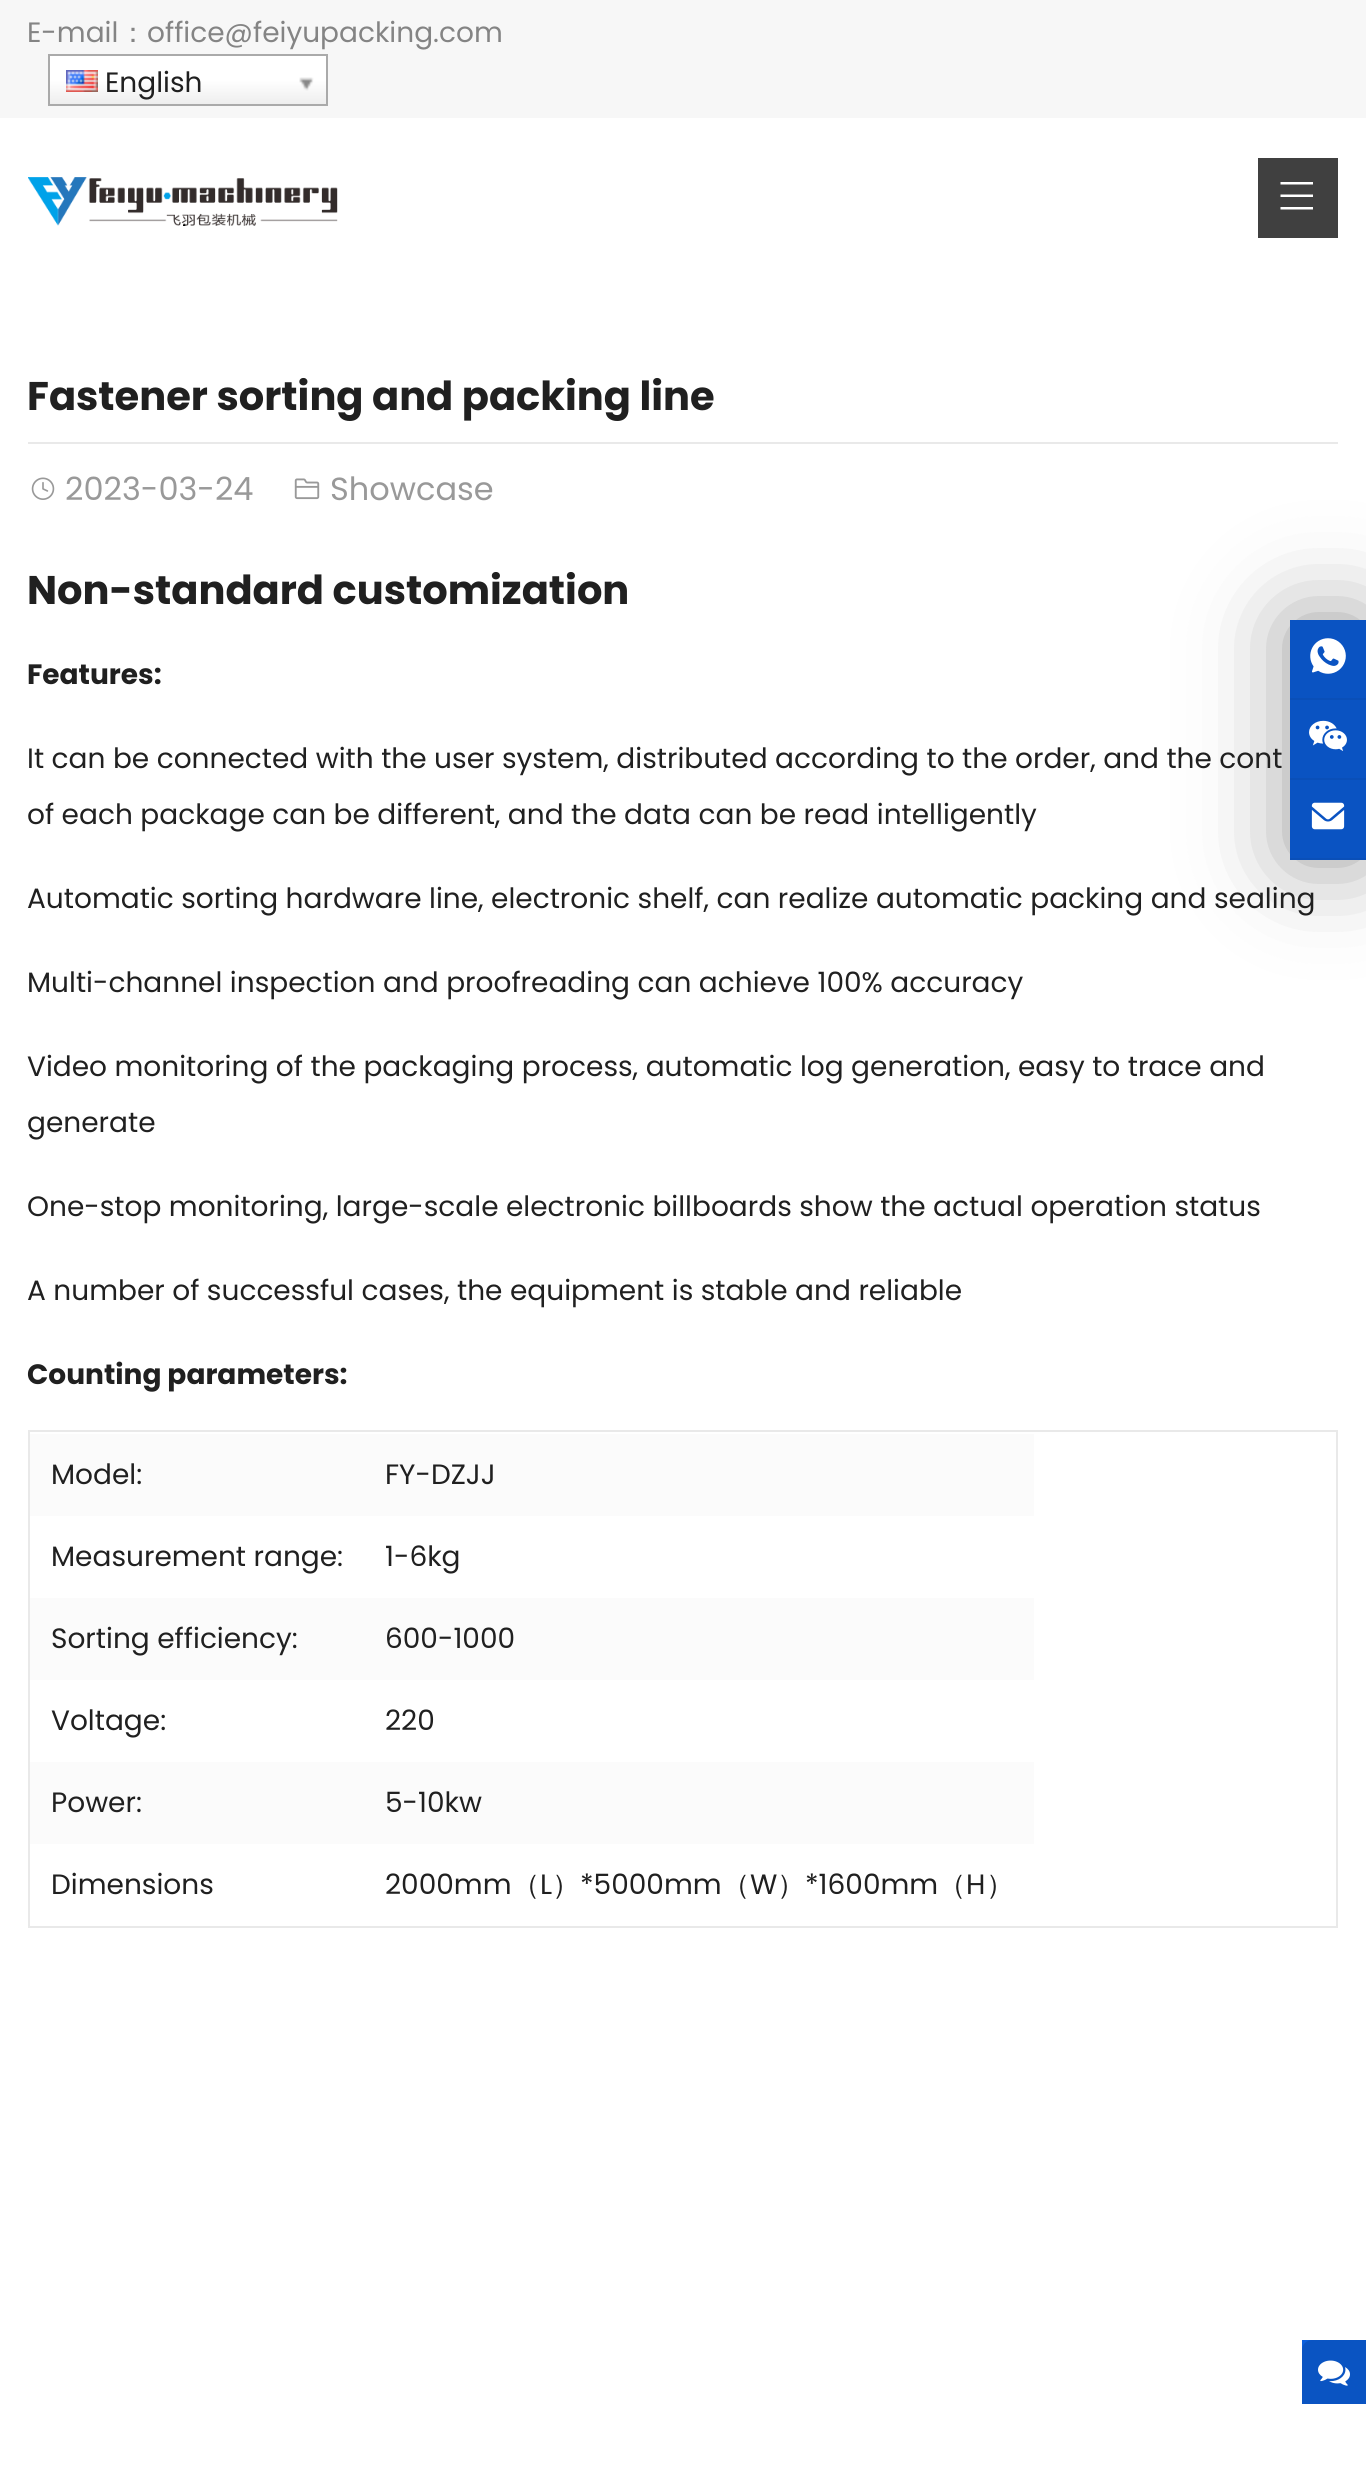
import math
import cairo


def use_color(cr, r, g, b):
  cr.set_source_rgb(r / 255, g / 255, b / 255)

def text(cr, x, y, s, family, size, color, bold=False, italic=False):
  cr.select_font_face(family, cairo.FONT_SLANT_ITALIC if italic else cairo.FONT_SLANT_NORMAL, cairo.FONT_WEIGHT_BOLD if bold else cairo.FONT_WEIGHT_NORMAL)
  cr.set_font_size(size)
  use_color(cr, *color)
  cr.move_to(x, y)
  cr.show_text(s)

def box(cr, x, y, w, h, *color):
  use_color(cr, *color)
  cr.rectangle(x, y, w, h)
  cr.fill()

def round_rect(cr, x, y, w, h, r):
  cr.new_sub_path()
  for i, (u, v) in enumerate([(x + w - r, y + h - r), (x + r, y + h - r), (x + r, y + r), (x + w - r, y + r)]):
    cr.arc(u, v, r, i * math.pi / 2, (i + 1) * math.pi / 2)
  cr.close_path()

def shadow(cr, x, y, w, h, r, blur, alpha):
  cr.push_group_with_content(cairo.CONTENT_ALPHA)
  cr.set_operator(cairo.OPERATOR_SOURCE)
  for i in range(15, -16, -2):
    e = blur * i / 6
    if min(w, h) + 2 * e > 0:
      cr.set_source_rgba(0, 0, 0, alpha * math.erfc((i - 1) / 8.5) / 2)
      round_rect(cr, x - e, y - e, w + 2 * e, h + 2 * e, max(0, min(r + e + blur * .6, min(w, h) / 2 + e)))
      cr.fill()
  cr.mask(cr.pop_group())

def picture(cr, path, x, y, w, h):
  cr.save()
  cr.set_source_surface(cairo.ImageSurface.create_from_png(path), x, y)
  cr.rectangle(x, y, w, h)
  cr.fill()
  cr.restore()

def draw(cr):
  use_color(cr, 255, 255, 255)
  cr.paint()
  box(cr, 0, 0, 1366, 118, 247, 247, 247)
  gradient = cairo.LinearGradient(50, 104, 50, 56)
  gradient.add_color_stop_rgba(0, 0.933, 0.933, 0.933, 1)
  gradient.add_color_stop_rgba(0.5, 1, 1, 1, 1)
  cr.set_source(gradient)
  cr.rectangle(50, 56, 276, 48)
  cr.fill()
  cr.rectangle(49, 55, 278, 50)
  use_color(cr, 170, 170, 170)
  cr.stroke()
  picture(cr, "img_01.png", 66, 70, 32, 22)
  picture(cr, "img_02.png", 299, 77, 15, 14)
  picture(cr, "img_03.png", 28, 177, 310, 49)
  box(cr, 1258, 158, 80, 80, 64, 64, 64)
  use_color(cr, 255, 255, 255)
  cr.new_path()
  cr.move_to(1280.5, 182)
  cr.line_to(1280.5, 184.5)
  cr.line_to(1313, 184.5)
  cr.line_to(1313, 182)
  cr.close_path()
  cr.move_to(1280.5, 194.5)
  cr.line_to(1280.5, 197)
  cr.line_to(1313, 197)
  cr.line_to(1313, 194.5)
  cr.close_path()
  cr.move_to(1280.5, 207)
  cr.line_to(1280.5, 209.5)
  cr.line_to(1313, 209.5)
  cr.line_to(1313, 207)
  cr.close_path()
  cr.fill()
  box(cr, 28, 442, 1310, 2, 233, 233, 233)
  picture(cr, "img_04.png", 31, 477, 24, 23)
  picture(cr, "img_05.png", 294, 478, 26, 22)
  cr.rectangle(29, 1431, 1308, 496)
  cr.stroke()
  box(cr, 30, 1434, 1004, 82, 251, 251, 251)
  box(cr, 30, 1598, 1004, 82, 251, 251, 251)
  box(cr, 30, 1762, 1004, 82, 251, 251, 251)
  use_color(cr, 0, 0, 0)
  shadow(cr, 1290, 620, 76, 240, 0, 48, 0.4)
  box(cr, 1290, 620, 76, 238, 10, 83, 194)
  box(cr, 1290, 698, 76, 2, 10, 79, 184)
  picture(cr, "img_06.png", 1310, 638, 36, 36)
  box(cr, 1290, 778, 76, 2, 10, 79, 184)
  picture(cr, "img_07.png", 1309, 720, 38, 31)
  box(cr, 1290, 858, 76, 2, 10, 79, 184)
  picture(cr, "img_08.png", 1311, 802, 34, 28)
  box(cr, 1302, 2340, 10, 10, 11, 95, 221)
  use_color(cr, 10, 84, 194)
  cr.new_path()
  cr.move_to(1312, 2340)
  cr.line_to(1366, 2340)
  cr.line_to(1366, 2404)
  cr.line_to(1302, 2404)
  cr.line_to(1302, 2350)
  cr.curve_to(1302, 2344.5, 1306.5, 2340, 1312, 2340)
  cr.close_path()
  cr.fill()
  picture(cr, "img_09.png", 1318, 2360, 32, 26)
  text(cr, 27, 42, "E-mail", "Poppins", 28, (132, 132, 132))
  text(cr, 119, 42, "：", "WenQuanYi Zen Hei Medium", 28, (132, 132, 132))
  text(cr, 147, 42, "office@feiyupacking.com", "Poppins", 28, (132, 132, 132))
  text(cr, 105, 92, "English", "Poppins", 28, (32, 32, 32))
  text(cr, 27, 410, "Fastener sorting and packing line", "Poppins", 40, (32, 32, 32), bold=True)
  text(cr, 65, 500, "2023-03-24", "Poppins", 32, (153, 153, 153))
  text(cr, 330, 500, "Showcase", "Poppins", 32, (153, 153, 153))
  text(cr, 27, 604, "Non-standard customization", "Poppins", 40, (32, 32, 32), bold=True)
  text(cr, 27, 684, "Features:", "Poppins", 28, (32, 32, 32), bold=True)
  text(cr, 27, 768, "It can be connected with the user system, distributed according to the order, and the cont", "Poppins", 28, (32, 32, 32))
  text(cr, 27, 824, "of each package can be different, and the data can be read intelligently", "Poppins", 28, (32, 32, 32))
  text(cr, 27, 908, "Automatic sorting hardware line, electronic shelf, can realize automatic packing and sealing", "Poppins", 28, (32, 32, 32))
  text(cr, 27, 992, "Multi-channel inspection and proofreading can achieve 100% accuracy", "Poppins", 28, (32, 32, 32))
  text(cr, 27, 1076, "Video monitoring of the packaging process, automatic log generation, easy to trace and", "Poppins", 28, (32, 32, 32))
  text(cr, 27, 1132, "generate", "Poppins", 28, (32, 32, 32))
  text(cr, 27, 1216, "One-stop monitoring, large-scale electronic billboards show the actual operation status", "Poppins", 28, (32, 32, 32))
  text(cr, 27, 1300, "A number of successful cases, the equipment is stable and reliable", "Poppins", 28, (32, 32, 32))
  text(cr, 27, 1384, "Counting parameters:", "Poppins", 28, (32, 32, 32), bold=True)
  text(cr, 51, 1484, "Model:", "Poppins", 28, (32, 32, 32))
  text(cr, 385, 1484, "FY-DZJJ", "Poppins", 28, (32, 32, 32))
  text(cr, 51, 1566, "Measurement range:", "Poppins", 28, (32, 32, 32))
  text(cr, 385, 1566, "1-6kg", "Poppins", 28, (32, 32, 32))
  text(cr, 51, 1648, "Sorting efficiency:", "Poppins", 28, (32, 32, 32))
  text(cr, 385, 1648, "600-1000", "Poppins", 28, (32, 32, 32))
  text(cr, 51, 1730, "Voltage:", "Poppins", 28, (32, 32, 32))
  text(cr, 385, 1730, "220", "Poppins", 28, (32, 32, 32))
  text(cr, 51, 1812, "Power:", "Poppins", 28, (32, 32, 32))
  text(cr, 385, 1812, "5-10kw", "Poppins", 28, (32, 32, 32))
  text(cr, 51, 1894, "Dimensions", "Poppins", 28, (32, 32, 32))
  text(cr, 385, 1894, "2000mm", "Poppins", 28, (32, 32, 32))
  text(cr, 512, 1894, "（", "WenQuanYi Zen Hei Medium", 28, (32, 32, 32))
  text(cr, 540, 1894, "L", "Poppins", 28, (32, 32, 32))
  text(cr, 552, 1894, "）", "WenQuanYi Zen Hei Medium", 28, (32, 32, 32))
  text(cr, 580, 1894, "*5000mm", "Poppins", 28, (32, 32, 32))
  text(cr, 722, 1894, "（", "WenQuanYi Zen Hei Medium", 28, (32, 32, 32))
  text(cr, 750, 1894, "W", "Poppins", 28, (32, 32, 32))
  text(cr, 777, 1894, "）", "WenQuanYi Zen Hei Medium", 28, (32, 32, 32))
  text(cr, 805, 1894, "*1600mm", "Poppins", 28, (32, 32, 32))
  text(cr, 938, 1894, "（", "WenQuanYi Zen Hei Medium", 28, (32, 32, 32))
  text(cr, 966, 1894, "H", "Poppins", 28, (32, 32, 32))
  text(cr, 986, 1894, "）", "WenQuanYi Zen Hei Medium", 28, (32, 32, 32))


surface = cairo.ImageSurface(cairo.FORMAT_RGB24, 1366, 2480)
cr = cairo.Context(surface)
options = cairo.FontOptions()
options.set_hint_metrics(cairo.HINT_METRICS_OFF)
options.set_hint_style(cairo.HINT_STYLE_NONE)
cr.set_font_options(options)
cr.set_miter_limit(4)
draw(cr)
surface.write_to_png("out.png")
